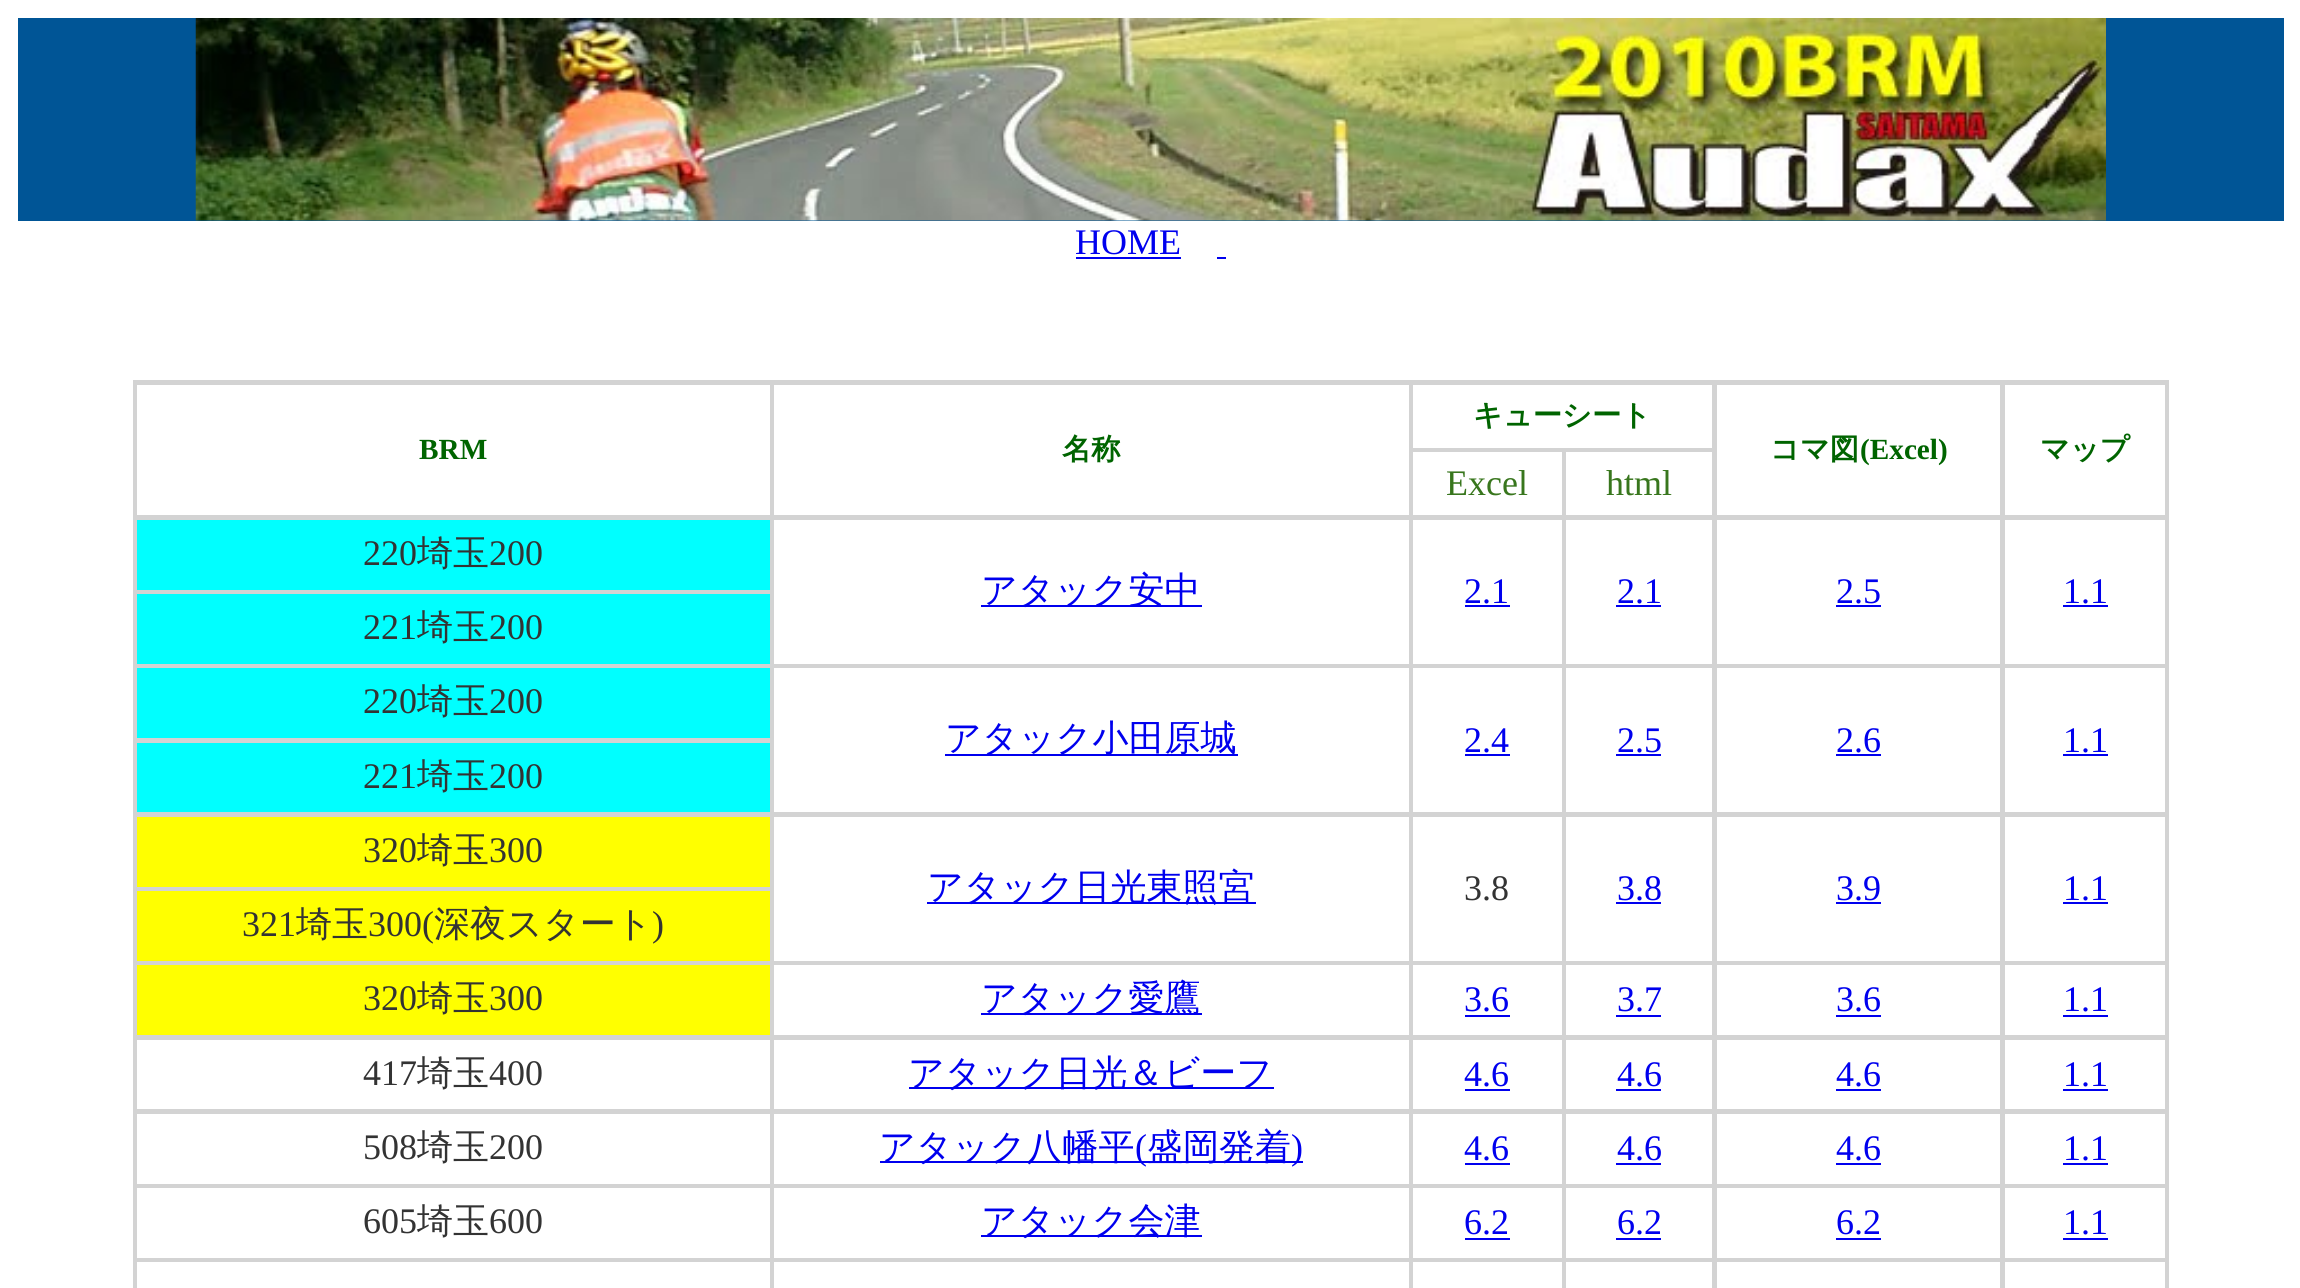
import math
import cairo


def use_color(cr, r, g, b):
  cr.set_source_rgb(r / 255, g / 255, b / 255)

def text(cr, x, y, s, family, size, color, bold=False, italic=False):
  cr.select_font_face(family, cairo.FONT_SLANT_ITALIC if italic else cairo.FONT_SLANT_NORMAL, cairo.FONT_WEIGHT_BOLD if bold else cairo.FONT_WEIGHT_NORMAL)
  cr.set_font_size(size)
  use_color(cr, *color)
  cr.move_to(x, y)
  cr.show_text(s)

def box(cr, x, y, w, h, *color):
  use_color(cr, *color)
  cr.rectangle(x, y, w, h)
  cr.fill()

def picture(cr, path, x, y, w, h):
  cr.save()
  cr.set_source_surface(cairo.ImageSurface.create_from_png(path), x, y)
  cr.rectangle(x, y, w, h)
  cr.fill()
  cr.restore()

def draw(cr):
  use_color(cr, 255, 255, 255)
  cr.paint()
  box(cr, 18, 18, 2266, 203, 0, 85, 150)
  picture(cr, "img_01.png", 195, 18, 1911, 203)
  box(cr, 1076, 257, 105, 2, 0, 0, 238)
  box(cr, 1217, 257, 9, 2, 0, 0, 238)
  box(cr, 133, 380, 2036, 908, 211, 211, 211)
  box(cr, 1413, 385, 299, 63, 255, 255, 255)
  box(cr, 137, 385, 633, 130, 255, 255, 255)
  box(cr, 774, 385, 635, 130, 255, 255, 255)
  box(cr, 1717, 385, 283, 130, 255, 255, 255)
  box(cr, 2005, 385, 160, 130, 255, 255, 255)
  box(cr, 1413, 452, 149, 63, 255, 255, 255)
  box(cr, 1566, 452, 146, 63, 255, 255, 255)
  box(cr, 137, 520, 633, 70, 0, 255, 255)
  box(cr, 774, 520, 635, 144, 255, 255, 255)
  box(cr, 981, 605, 221, 2, 0, 0, 238)
  box(cr, 1413, 520, 149, 144, 255, 255, 255)
  box(cr, 1465, 605, 45, 2, 0, 0, 238)
  box(cr, 1566, 520, 146, 144, 255, 255, 255)
  box(cr, 1616, 605, 45, 2, 0, 0, 238)
  box(cr, 1717, 520, 283, 144, 255, 255, 255)
  box(cr, 1836, 605, 45, 2, 0, 0, 238)
  box(cr, 2005, 520, 160, 144, 255, 255, 255)
  box(cr, 2063, 605, 45, 2, 0, 0, 238)
  box(cr, 137, 594, 633, 70, 0, 255, 255)
  box(cr, 137, 668, 633, 70, 0, 255, 255)
  box(cr, 774, 668, 635, 144, 255, 255, 255)
  box(cr, 945, 754, 293, 2, 0, 0, 238)
  box(cr, 1413, 668, 149, 144, 255, 255, 255)
  box(cr, 1465, 754, 45, 2, 0, 0, 238)
  box(cr, 1566, 668, 146, 144, 255, 255, 255)
  box(cr, 1616, 754, 45, 2, 0, 0, 238)
  box(cr, 1717, 668, 283, 144, 255, 255, 255)
  box(cr, 1836, 754, 45, 2, 0, 0, 238)
  box(cr, 2005, 668, 160, 144, 255, 255, 255)
  box(cr, 2063, 754, 45, 2, 0, 0, 238)
  box(cr, 137, 743, 633, 69, 0, 255, 255)
  box(cr, 137, 817, 633, 70, 255, 255, 0)
  box(cr, 774, 817, 635, 144, 255, 255, 255)
  box(cr, 927, 902, 329, 2, 0, 0, 238)
  box(cr, 1413, 817, 149, 144, 255, 255, 255)
  box(cr, 1566, 817, 146, 144, 255, 255, 255)
  box(cr, 1616, 902, 45, 2, 0, 0, 238)
  box(cr, 1717, 817, 283, 144, 255, 255, 255)
  box(cr, 1836, 902, 45, 2, 0, 0, 238)
  box(cr, 2005, 817, 160, 144, 255, 255, 255)
  box(cr, 2063, 902, 45, 2, 0, 0, 238)
  box(cr, 137, 891, 633, 70, 255, 255, 0)
  box(cr, 137, 965, 633, 70, 255, 255, 0)
  box(cr, 774, 965, 635, 70, 255, 255, 255)
  box(cr, 981, 1013, 221, 2, 0, 0, 238)
  box(cr, 1413, 965, 149, 70, 255, 255, 255)
  box(cr, 1465, 1015, 45, 2, 0, 0, 238)
  box(cr, 1566, 965, 146, 70, 255, 255, 255)
  box(cr, 1616, 1015, 45, 2, 0, 0, 238)
  box(cr, 1717, 965, 283, 70, 255, 255, 255)
  box(cr, 1836, 1015, 45, 2, 0, 0, 238)
  box(cr, 2005, 965, 160, 70, 255, 255, 255)
  box(cr, 2063, 1015, 45, 2, 0, 0, 238)
  box(cr, 137, 1040, 633, 69, 255, 255, 255)
  box(cr, 774, 1040, 635, 69, 255, 255, 255)
  box(cr, 909, 1087, 365, 2, 0, 0, 238)
  box(cr, 1413, 1040, 149, 69, 255, 255, 255)
  box(cr, 1465, 1089, 45, 2, 0, 0, 238)
  box(cr, 1566, 1040, 146, 69, 255, 255, 255)
  box(cr, 1616, 1089, 45, 2, 0, 0, 238)
  box(cr, 1717, 1040, 283, 69, 255, 255, 255)
  box(cr, 1836, 1089, 45, 2, 0, 0, 238)
  box(cr, 2005, 1040, 160, 69, 255, 255, 255)
  box(cr, 2063, 1089, 45, 2, 0, 0, 238)
  box(cr, 137, 1114, 633, 70, 255, 255, 255)
  box(cr, 774, 1114, 635, 70, 255, 255, 255)
  box(cr, 880, 1161, 423, 2, 0, 0, 238)
  box(cr, 1413, 1114, 149, 70, 255, 255, 255)
  box(cr, 1465, 1163, 45, 2, 0, 0, 238)
  box(cr, 1566, 1114, 146, 70, 255, 255, 255)
  box(cr, 1616, 1163, 45, 2, 0, 0, 238)
  box(cr, 1717, 1114, 283, 70, 255, 255, 255)
  box(cr, 1836, 1163, 45, 2, 0, 0, 238)
  box(cr, 2005, 1114, 160, 70, 255, 255, 255)
  box(cr, 2063, 1163, 45, 2, 0, 0, 238)
  box(cr, 137, 1188, 633, 70, 255, 255, 255)
  box(cr, 774, 1188, 635, 70, 255, 255, 255)
  box(cr, 981, 1235, 221, 2, 0, 0, 238)
  box(cr, 1413, 1188, 149, 70, 255, 255, 255)
  box(cr, 1465, 1238, 45, 2, 0, 0, 238)
  box(cr, 1566, 1188, 146, 70, 255, 255, 255)
  box(cr, 1616, 1238, 45, 2, 0, 0, 238)
  box(cr, 1717, 1188, 283, 70, 255, 255, 255)
  box(cr, 1836, 1238, 45, 2, 0, 0, 238)
  box(cr, 2005, 1188, 160, 70, 255, 255, 255)
  box(cr, 2063, 1238, 45, 2, 0, 0, 238)
  box(cr, 137, 1262, 633, 26, 255, 255, 255)
  box(cr, 774, 1262, 635, 26, 255, 255, 255)
  box(cr, 1413, 1262, 149, 26, 255, 255, 255)
  box(cr, 1566, 1262, 146, 26, 255, 255, 255)
  box(cr, 1717, 1262, 283, 26, 255, 255, 255)
  box(cr, 2005, 1262, 160, 26, 255, 255, 255)
  text(cr, 1075, 254, "HOME", "Liberation Serif", 36, (0, 0, 238))
  text(cr, 1473, 425, "キューシート", "WenQuanYi Zen Hei", 29.25, (0, 100, 0), bold=True)
  text(cr, 419, 459, "BRM", "Liberation Serif", 29.25, (0, 100, 0), bold=True)
  text(cr, 1062, 459, "名称", "WenQuanYi Zen Hei", 29.25, (0, 100, 0), bold=True)
  text(cr, 1770, 459, "コマ図", "WenQuanYi Zen Hei", 29.25, (0, 100, 0), bold=True)
  text(cr, 1860, 459, "(Excel)", "Liberation Serif", 29.25, (0, 100, 0), bold=True)
  text(cr, 2040, 459, "マップ", "WenQuanYi Zen Hei", 29.25, (0, 100, 0), bold=True)
  text(cr, 1446, 495, "Excel", "Liberation Serif", 36, (56, 118, 29))
  text(cr, 1606, 495, "html", "Liberation Serif", 36, (56, 118, 29))
  text(cr, 363, 565, "220", "Liberation Serif", 36, (51, 51, 51))
  text(cr, 417, 565, "埼玉", "WenQuanYi Zen Hei Medium", 36, (51, 51, 51))
  text(cr, 489, 565, "200", "Liberation Serif", 36, (51, 51, 51))
  text(cr, 981, 602, "アタック安中", "WenQuanYi Zen Hei Medium", 36, (0, 0, 238))
  text(cr, 1464, 603, "2.1", "Liberation Serif", 36, (0, 0, 238))
  text(cr, 1617, 603, "2.1", "Liberation Serif", 36, (0, 0, 238))
  text(cr, 1836, 603, "2.5", "Liberation Serif", 36, (0, 0, 238))
  text(cr, 2063, 603, "1.1", "Liberation Serif", 36, (0, 0, 238))
  text(cr, 363, 639, "221", "Liberation Serif", 36, (51, 51, 51))
  text(cr, 417, 639, "埼玉", "WenQuanYi Zen Hei Medium", 36, (51, 51, 51))
  text(cr, 489, 639, "200", "Liberation Serif", 36, (51, 51, 51))
  text(cr, 363, 713, "220", "Liberation Serif", 36, (51, 51, 51))
  text(cr, 417, 713, "埼玉", "WenQuanYi Zen Hei Medium", 36, (51, 51, 51))
  text(cr, 489, 713, "200", "Liberation Serif", 36, (51, 51, 51))
  text(cr, 945, 750, "アタック小田原城", "WenQuanYi Zen Hei Medium", 36, (0, 0, 238))
  text(cr, 1464, 752, "2.4", "Liberation Serif", 36, (0, 0, 238))
  text(cr, 1617, 752, "2.5", "Liberation Serif", 36, (0, 0, 238))
  text(cr, 1836, 752, "2.6", "Liberation Serif", 36, (0, 0, 238))
  text(cr, 2063, 752, "1.1", "Liberation Serif", 36, (0, 0, 238))
  text(cr, 363, 788, "221", "Liberation Serif", 36, (51, 51, 51))
  text(cr, 417, 788, "埼玉", "WenQuanYi Zen Hei Medium", 36, (51, 51, 51))
  text(cr, 489, 788, "200", "Liberation Serif", 36, (51, 51, 51))
  text(cr, 363, 862, "320", "Liberation Serif", 36, (51, 51, 51))
  text(cr, 417, 862, "埼玉", "WenQuanYi Zen Hei Medium", 36, (51, 51, 51))
  text(cr, 489, 862, "300", "Liberation Serif", 36, (51, 51, 51))
  text(cr, 927, 899, "アタック日光東照宮", "WenQuanYi Zen Hei Medium", 36, (0, 0, 238))
  text(cr, 1464, 900, "3.8", "Liberation Serif", 36, (51, 51, 51))
  text(cr, 1617, 900, "3.8", "Liberation Serif", 36, (0, 0, 238))
  text(cr, 1836, 900, "3.9", "Liberation Serif", 36, (0, 0, 238))
  text(cr, 2063, 900, "1.1", "Liberation Serif", 36, (0, 0, 238))
  text(cr, 242, 936, "321", "Liberation Serif", 36, (51, 51, 51))
  text(cr, 296, 936, "埼玉", "WenQuanYi Zen Hei Medium", 36, (51, 51, 51))
  text(cr, 368, 936, "300(", "Liberation Serif", 36, (51, 51, 51))
  text(cr, 434, 936, "深夜スタート", "WenQuanYi Zen Hei Medium", 36, (51, 51, 51))
  text(cr, 652, 936, ")", "Liberation Serif", 36, (51, 51, 51))
  text(cr, 363, 1010, "320", "Liberation Serif", 36, (51, 51, 51))
  text(cr, 417, 1010, "埼玉", "WenQuanYi Zen Hei Medium", 36, (51, 51, 51))
  text(cr, 489, 1010, "300", "Liberation Serif", 36, (51, 51, 51))
  text(cr, 981, 1010, "アタック愛鷹", "WenQuanYi Zen Hei Medium", 36, (0, 0, 238))
  text(cr, 1464, 1011, "3.6", "Liberation Serif", 36, (0, 0, 238))
  text(cr, 1617, 1011, "3.7", "Liberation Serif", 36, (0, 0, 238))
  text(cr, 1836, 1011, "3.6", "Liberation Serif", 36, (0, 0, 238))
  text(cr, 2063, 1011, "1.1", "Liberation Serif", 36, (0, 0, 238))
  text(cr, 363, 1085, "417", "Liberation Serif", 36, (51, 51, 51))
  text(cr, 417, 1085, "埼玉", "WenQuanYi Zen Hei Medium", 36, (51, 51, 51))
  text(cr, 489, 1085, "400", "Liberation Serif", 36, (51, 51, 51))
  text(cr, 908, 1085, "アタック日光＆ビーフ", "WenQuanYi Zen Hei Medium", 36, (0, 0, 238))
  text(cr, 1464, 1086, "4.6", "Liberation Serif", 36, (0, 0, 238))
  text(cr, 1617, 1086, "4.6", "Liberation Serif", 36, (0, 0, 238))
  text(cr, 1836, 1086, "4.6", "Liberation Serif", 36, (0, 0, 238))
  text(cr, 2063, 1086, "1.1", "Liberation Serif", 36, (0, 0, 238))
  text(cr, 363, 1159, "508", "Liberation Serif", 36, (51, 51, 51))
  text(cr, 417, 1159, "埼玉", "WenQuanYi Zen Hei Medium", 36, (51, 51, 51))
  text(cr, 489, 1159, "200", "Liberation Serif", 36, (51, 51, 51))
  text(cr, 879, 1159, "アタック八幡平", "WenQuanYi Zen Hei Medium", 36, (0, 0, 238))
  text(cr, 1135, 1159, "(", "Liberation Serif", 36, (0, 0, 238))
  text(cr, 1147, 1159, "盛岡発着", "WenQuanYi Zen Hei Medium", 36, (0, 0, 238))
  text(cr, 1291, 1159, ")", "Liberation Serif", 36, (0, 0, 238))
  text(cr, 1464, 1160, "4.6", "Liberation Serif", 36, (0, 0, 238))
  text(cr, 1617, 1160, "4.6", "Liberation Serif", 36, (0, 0, 238))
  text(cr, 1836, 1160, "4.6", "Liberation Serif", 36, (0, 0, 238))
  text(cr, 2063, 1160, "1.1", "Liberation Serif", 36, (0, 0, 238))
  text(cr, 363, 1233, "605", "Liberation Serif", 36, (51, 51, 51))
  text(cr, 417, 1233, "埼玉", "WenQuanYi Zen Hei Medium", 36, (51, 51, 51))
  text(cr, 489, 1233, "600", "Liberation Serif", 36, (51, 51, 51))
  text(cr, 981, 1233, "アタック会津", "WenQuanYi Zen Hei Medium", 36, (0, 0, 238))
  text(cr, 1464, 1234, "6.2", "Liberation Serif", 36, (0, 0, 238))
  text(cr, 1617, 1234, "6.2", "Liberation Serif", 36, (0, 0, 238))
  text(cr, 1836, 1234, "6.2", "Liberation Serif", 36, (0, 0, 238))
  text(cr, 2063, 1234, "1.1", "Liberation Serif", 36, (0, 0, 238))


surface = cairo.ImageSurface(cairo.FORMAT_RGB24, 2300, 1288)
cr = cairo.Context(surface)
options = cairo.FontOptions()
options.set_hint_metrics(cairo.HINT_METRICS_OFF)
options.set_hint_style(cairo.HINT_STYLE_NONE)
cr.set_font_options(options)
cr.set_miter_limit(4)
draw(cr)
surface.write_to_png("out.png")
